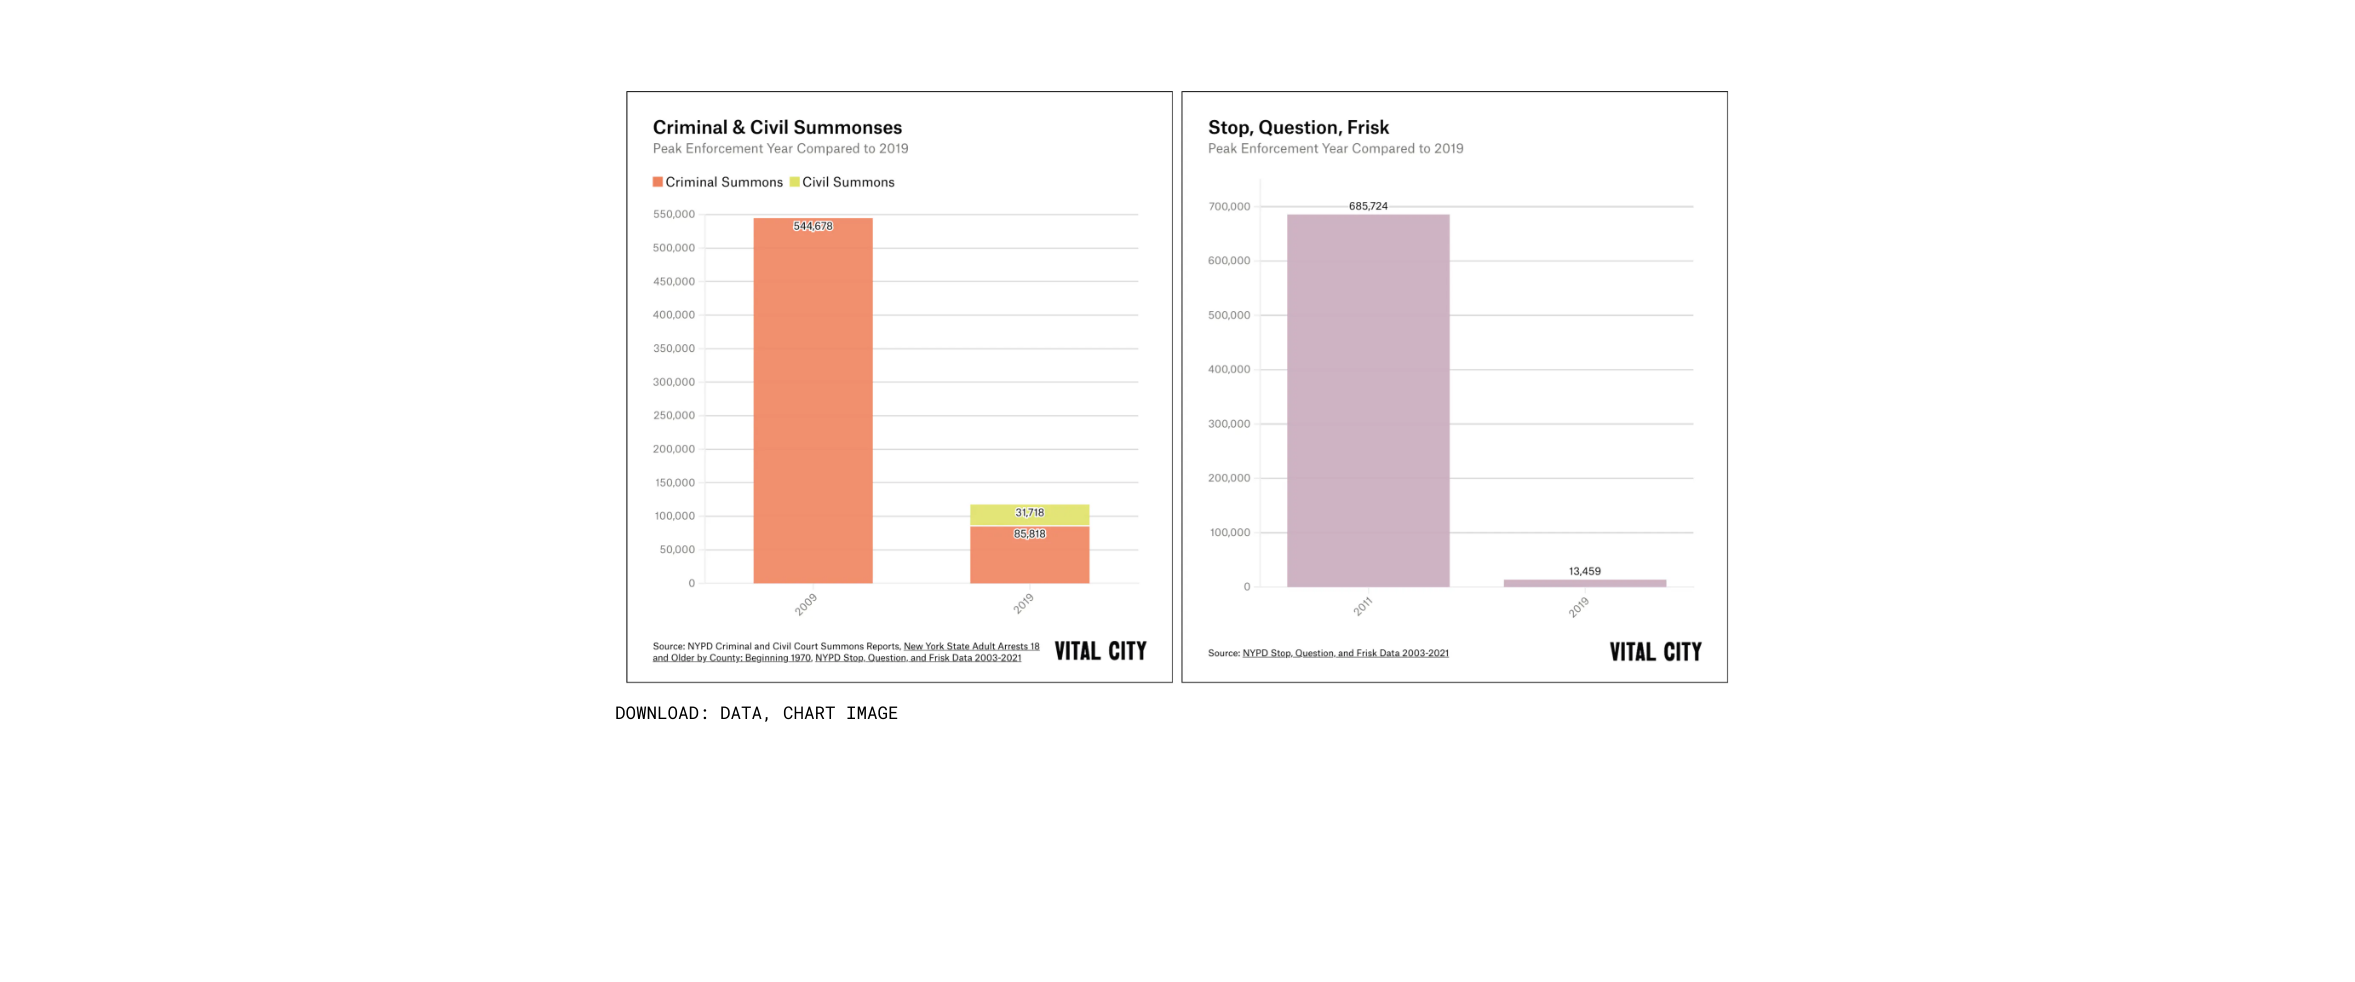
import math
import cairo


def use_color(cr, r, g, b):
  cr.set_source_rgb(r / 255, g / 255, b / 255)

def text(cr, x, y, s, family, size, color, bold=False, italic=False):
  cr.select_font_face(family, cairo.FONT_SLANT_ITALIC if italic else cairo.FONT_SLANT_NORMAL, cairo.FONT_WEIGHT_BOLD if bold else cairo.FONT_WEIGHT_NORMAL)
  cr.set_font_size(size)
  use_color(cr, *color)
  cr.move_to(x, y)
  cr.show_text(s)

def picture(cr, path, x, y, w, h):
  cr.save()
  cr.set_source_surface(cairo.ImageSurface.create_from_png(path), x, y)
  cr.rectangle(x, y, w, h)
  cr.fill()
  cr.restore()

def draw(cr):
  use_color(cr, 255, 255, 255)
  cr.paint()
  picture(cr, "img_01.png", 626, 91, 1103, 593)
  text(cr, 615, 719, "DOWNLOAD: DATA, CHART IMAGE", "Roboto Mono", 17.5, (0, 0, 0))


surface = cairo.ImageSurface(cairo.FORMAT_RGB24, 2355, 982)
cr = cairo.Context(surface)
options = cairo.FontOptions()
options.set_hint_metrics(cairo.HINT_METRICS_OFF)
options.set_hint_style(cairo.HINT_STYLE_NONE)
cr.set_font_options(options)
cr.set_miter_limit(4)
draw(cr)
surface.write_to_png("out.png")
